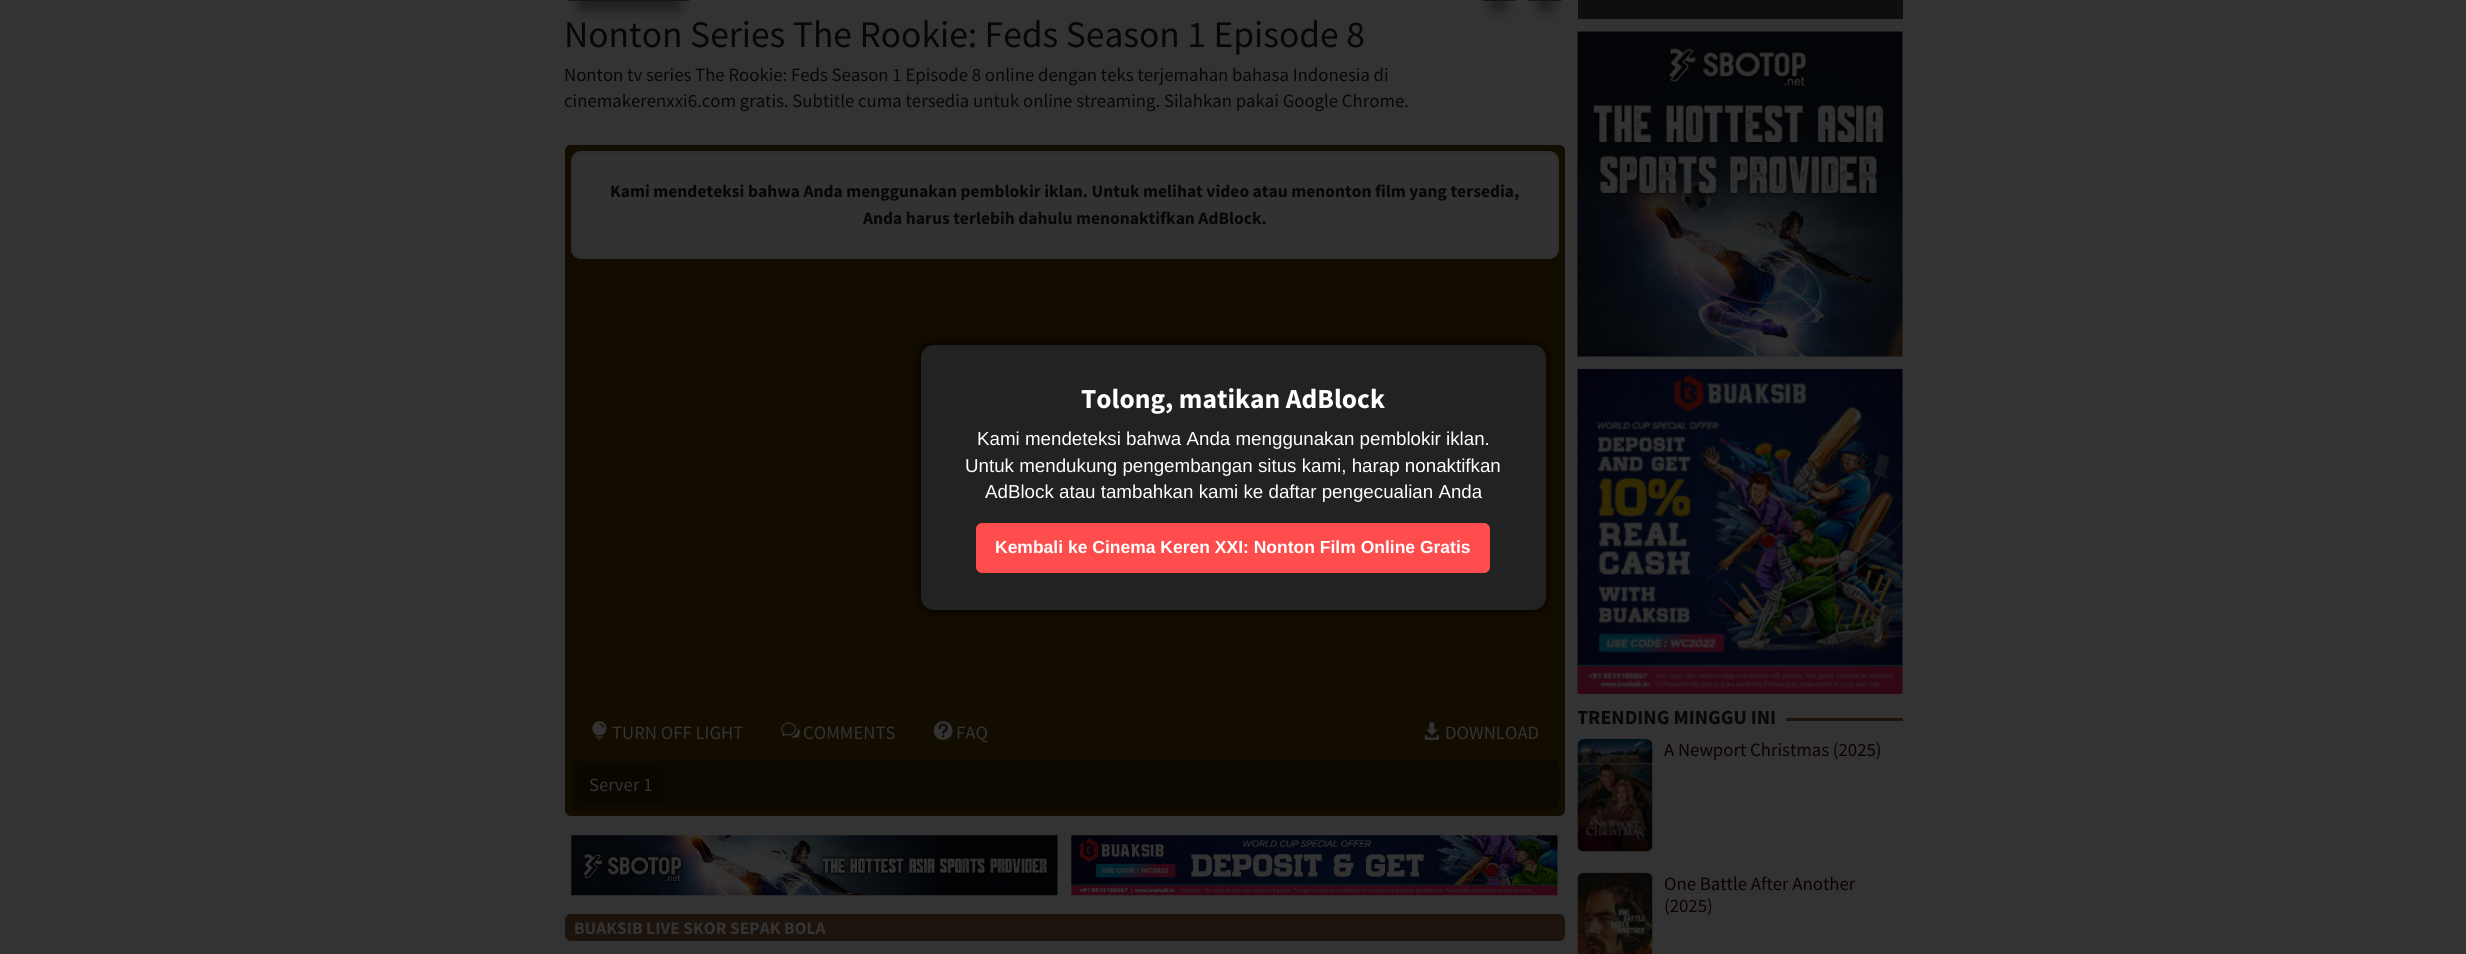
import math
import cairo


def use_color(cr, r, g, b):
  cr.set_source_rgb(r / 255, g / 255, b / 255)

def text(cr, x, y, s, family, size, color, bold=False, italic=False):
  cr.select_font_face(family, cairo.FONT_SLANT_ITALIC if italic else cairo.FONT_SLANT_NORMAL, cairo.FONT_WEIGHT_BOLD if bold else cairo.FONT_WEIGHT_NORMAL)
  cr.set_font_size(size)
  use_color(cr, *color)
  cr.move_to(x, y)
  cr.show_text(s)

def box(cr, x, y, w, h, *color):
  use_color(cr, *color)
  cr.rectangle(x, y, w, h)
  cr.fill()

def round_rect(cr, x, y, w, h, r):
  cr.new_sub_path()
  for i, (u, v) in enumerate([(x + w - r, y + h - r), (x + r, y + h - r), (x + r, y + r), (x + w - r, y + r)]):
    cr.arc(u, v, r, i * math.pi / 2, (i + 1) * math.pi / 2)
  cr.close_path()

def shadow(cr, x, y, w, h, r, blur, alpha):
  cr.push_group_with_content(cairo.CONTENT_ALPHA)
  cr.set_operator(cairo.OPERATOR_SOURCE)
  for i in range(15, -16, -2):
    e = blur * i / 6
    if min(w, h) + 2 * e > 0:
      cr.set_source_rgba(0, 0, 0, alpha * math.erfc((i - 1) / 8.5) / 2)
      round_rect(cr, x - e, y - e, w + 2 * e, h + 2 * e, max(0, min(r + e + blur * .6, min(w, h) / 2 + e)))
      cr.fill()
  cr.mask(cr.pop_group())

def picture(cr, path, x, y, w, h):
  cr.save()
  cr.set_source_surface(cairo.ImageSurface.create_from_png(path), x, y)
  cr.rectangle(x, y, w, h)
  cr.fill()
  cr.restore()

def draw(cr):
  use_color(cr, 51, 51, 51)
  cr.paint()
  use_color(cr, 0, 0, 0)
  shadow(cr, 578, -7, 102, 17, 0, 6, 0.4)
  round_rect(cr, 565.5, -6.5, 127, 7, 5.5)
  use_color(cr, 27, 19, 12)
  cr.set_line_width(1)
  cr.stroke()
  use_color(cr, 0, 0, 0)
  shadow(cr, 1491, -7, 15, 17, 0, 6, 0.4)
  round_rect(cr, 1479.5, -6.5, 39, 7, 5.5)
  use_color(cr, 27, 19, 12)
  cr.stroke()
  use_color(cr, 0, 0, 0)
  shadow(cr, 1538, -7, 15, 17, 0, 6, 0.4)
  round_rect(cr, 1525.5, -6.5, 39, 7, 5.5)
  use_color(cr, 27, 19, 12)
  cr.stroke()
  use_color(cr, 19, 12, 0)
  round_rect(cr, 565, 145, 1000, 671, 6)
  cr.fill()
  use_color(cr, 50, 50, 50)
  round_rect(cr, 572.5, 152.5, 985, 105, 8.5)
  cr.fill_preserve()
  use_color(cr, 47, 47, 48)
  cr.set_line_width(3)
  cr.stroke()
  picture(cr, "img_01.png", 592, 721, 15, 19)
  picture(cr, "img_02.png", 781, 722, 19, 16)
  picture(cr, "img_03.png", 933, 721, 20, 19)
  picture(cr, "img_04.png", 1424, 722, 15, 18)
  use_color(cr, 14, 9, 0)
  round_rect(cr, 571, 759, 988, 51, 6)
  cr.fill()
  use_color(cr, 11, 7, 0)
  round_rect(cr, 578, 765, 87, 39, 6)
  cr.fill()
  picture(cr, "img_05.png", 571, 835, 487, 61)
  picture(cr, "img_06.png", 1071, 835, 487, 61)
  use_color(cr, 27, 19, 12)
  round_rect(cr, 565, 914, 1000, 27, 6)
  cr.fill()
  box(cr, 1578, 0, 325, 19, 14, 14, 14)
  picture(cr, "img_07.png", 1577, 31, 326, 326)
  picture(cr, "img_08.png", 1577, 369, 326, 325)
  box(cr, 1786, 718, 117, 3, 27, 19, 12)
  box(cr, 1578, 861, 325, 1, 48, 48, 48)
  picture(cr, "img_09.png", 1577, 739, 76, 113)
  picture(cr, "img_10.png", 1577, 872, 76, 82)
  use_color(cr, 0, 0, 0)
  shadow(cr, 921, 345, 625, 265, 13, 6, 1)
  use_color(cr, 34, 34, 34)
  round_rect(cr, 921, 345, 625, 265, 13)
  cr.fill()
  use_color(cr, 255, 77, 77)
  round_rect(cr, 976, 523, 514, 50, 6)
  cr.fill()
  text(cr, 564, 47, "Nonton Series The Rookie: Feds Season 1 Episode 8", "Source Sans Pro", 37.5, (7, 7, 7))
  text(cr, 564, 81, "Nonton tv series The Rookie: Feds Season 1 Episode 8 online dengan teks terjemahan bahasa Indonesia di", "Source Sans Pro", 18.75, (7, 7, 7))
  text(cr, 564, 107, "cinemakerenxxi6.com gratis. Subtitle cuma tersedia untuk online streaming. Silahkan pakai Google Chrome.", "Source Sans Pro", 18.75, (7, 7, 7))
  text(cr, 610, 197, "Kami mendeteksi bahwa Anda menggunakan pemblokir iklan. Untuk melihat video atau menonton film yang tersedia,", "Source Sans Pro", 17.5, (7, 7, 7), bold=True)
  text(cr, 863, 224, "Anda harus terlebih dahulu menonaktifkan AdBlock.", "Source Sans Pro", 17.5, (7, 7, 7), bold=True)
  text(cr, 612, 739, "TURN OFF LIGHT", "Source Sans Pro", 18.75, (51, 51, 51))
  text(cr, 803, 739, "COMMENTS", "Source Sans Pro", 18.75, (51, 51, 51))
  text(cr, 956, 739, "FAQ", "Source Sans Pro", 18.75, (51, 51, 51))
  text(cr, 1445, 739, "DOWNLOAD", "Source Sans Pro", 18.75, (51, 51, 51))
  text(cr, 589, 791, "Server 1", "Source Sans Pro", 18.75, (51, 51, 51))
  text(cr, 574, 934, "BUAKSIB LIVE SKOR SEPAK BOLA", "Source Sans Pro", 17.5, (51, 51, 51), bold=True)
  cr.save()
  cr.rectangle(1578, 706, 325, 23)
  cr.clip()
  text(cr, 1577, 724, "TRENDING MINGGU INI", "Source Sans Pro", 20, (7, 7, 7), bold=True)
  cr.restore()
  text(cr, 1664, 756, "A Newport Christmas (2025)", "Source Sans Pro", 18.75, (13, 0, 0))
  text(cr, 1664, 890, "One Battle After Another", "Source Sans Pro", 18.75, (13, 0, 0))
  text(cr, 1664, 912, "(2025)", "Source Sans Pro", 18.75, (13, 0, 0))
  text(cr, 1081, 408, "Tolong, matikan AdBlock", "Source Sans Pro", 27.5, (255, 255, 255), bold=True)
  text(cr, 977, 445, "Kami mendeteksi bahwa Anda menggunakan pemblokir iklan.", "Liberation Sans", 18.75, (255, 255, 255))
  text(cr, 965, 472, "Untuk mendukung pengembangan situs kami, harap nonaktifkan", "Liberation Sans", 18.75, (255, 255, 255))
  text(cr, 985, 498, "AdBlock atau tambahkan kami ke daftar pengecualian Anda", "Liberation Sans", 18.75, (255, 255, 255))
  text(cr, 995, 553, "Kembali ke Cinema Keren XXI: Nonton Film Online Gratis", "Liberation Sans", 17.5, (255, 255, 255), bold=True)


surface = cairo.ImageSurface(cairo.FORMAT_RGB24, 2466, 954)
cr = cairo.Context(surface)
options = cairo.FontOptions()
options.set_hint_metrics(cairo.HINT_METRICS_OFF)
options.set_hint_style(cairo.HINT_STYLE_NONE)
cr.set_font_options(options)
cr.set_miter_limit(4)
draw(cr)
surface.write_to_png("out.png")
